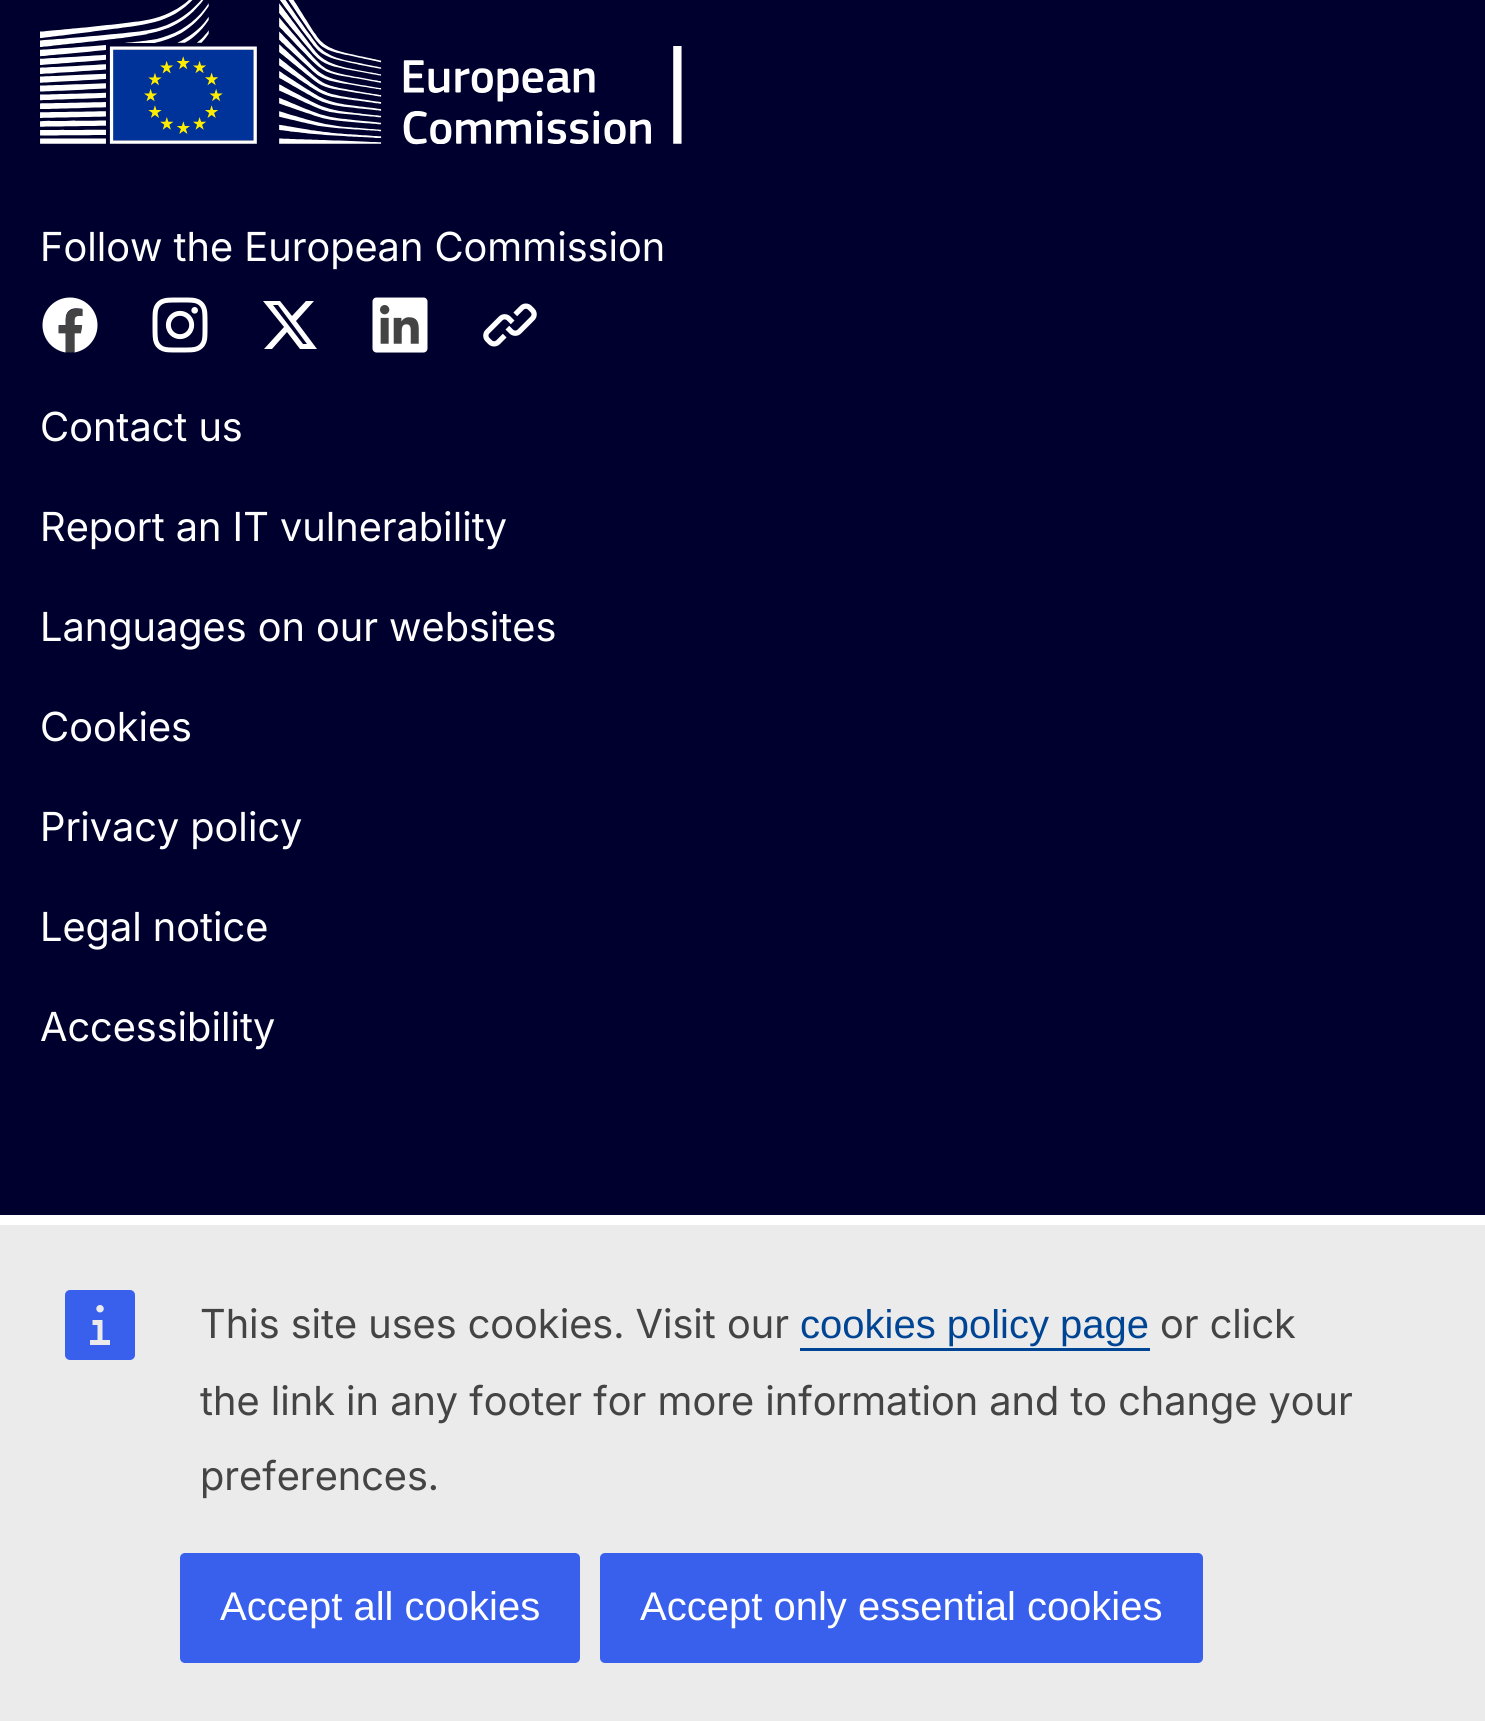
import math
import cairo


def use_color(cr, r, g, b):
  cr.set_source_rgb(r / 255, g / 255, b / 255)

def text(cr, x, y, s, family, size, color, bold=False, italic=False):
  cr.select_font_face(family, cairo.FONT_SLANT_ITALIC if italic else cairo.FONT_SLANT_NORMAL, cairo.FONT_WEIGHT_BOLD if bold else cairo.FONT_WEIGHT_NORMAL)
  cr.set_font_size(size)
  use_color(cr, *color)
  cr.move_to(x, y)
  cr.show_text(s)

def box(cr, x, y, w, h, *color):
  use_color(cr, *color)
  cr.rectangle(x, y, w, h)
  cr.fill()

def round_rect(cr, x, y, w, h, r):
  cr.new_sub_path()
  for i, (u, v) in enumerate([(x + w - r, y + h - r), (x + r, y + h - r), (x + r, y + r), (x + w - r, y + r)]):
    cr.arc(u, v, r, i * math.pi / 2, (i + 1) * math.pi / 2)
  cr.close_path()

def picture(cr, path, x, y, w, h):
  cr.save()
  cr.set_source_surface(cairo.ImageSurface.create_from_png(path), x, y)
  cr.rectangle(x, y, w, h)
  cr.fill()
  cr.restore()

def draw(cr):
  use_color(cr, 255, 255, 255)
  cr.paint()
  box(cr, 0, 0, 1485, 1215, 0, 0, 46)
  picture(cr, "img_01.png", 40, 0, 642, 145)
  picture(cr, "img_02.png", 42, 297, 56, 56)
  picture(cr, "img_03.png", 152, 297, 56, 56)
  use_color(cr, 255, 255, 255)
  cr.new_path()
  cr.move_to(306, 301)
  cr.line_to(314, 301)
  cr.line_to(296, 321)
  cr.line_to(317, 349)
  cr.line_to(300, 349)
  cr.line_to(287, 332)
  cr.line_to(272, 349)
  cr.line_to(264, 349)
  cr.line_to(284, 327)
  cr.line_to(263, 301)
  cr.line_to(280, 301)
  cr.line_to(292, 316)
  cr.close_path()
  cr.move_to(303, 344)
  cr.line_to(307, 344)
  cr.line_to(278, 305)
  cr.line_to(273, 305)
  cr.close_path()
  cr.fill()
  picture(cr, "img_04.png", 372, 297, 56, 56)
  picture(cr, "img_05.png", 483, 303, 54, 44)
  box(cr, 0, 1225, 1485, 496, 235, 235, 235)
  picture(cr, "img_06.png", 65, 1290, 70, 70)
  box(cr, 800, 1348, 350, 3, 0, 68, 148)
  use_color(cr, 56, 96, 237)
  round_rect(cr, 180, 1553, 400, 110, 5)
  cr.fill()
  round_rect(cr, 600, 1553, 603, 110, 5)
  cr.fill()
  text(cr, 40, 261, "Follow the European Commission", "Inter", 40, (255, 255, 255))
  text(cr, 40, 441, "Contact us", "Inter", 40, (255, 255, 255))
  text(cr, 40, 541, "Report an IT vulnerability", "Inter", 40, (255, 255, 255))
  text(cr, 40, 641, "Languages on our websites", "Inter", 40, (255, 255, 255))
  text(cr, 40, 741, "Cookies", "Inter", 40, (255, 255, 255))
  text(cr, 40, 841, "Privacy policy", "Inter", 40, (255, 255, 255))
  text(cr, 40, 941, "Legal notice", "Inter", 40, (255, 255, 255))
  text(cr, 40, 1041, "Accessibility", "Inter", 40, (255, 255, 255))
  text(cr, 200, 1338, "This site uses cookies. Visit our", "Inter", 40, (68, 68, 68))
  text(cr, 800, 1338, "cookies policy page", "Liberation Sans", 40, (0, 68, 148))
  text(cr, 1160, 1338, "or click", "Inter", 40, (68, 68, 68))
  text(cr, 200, 1415, "the link in any footer for more information and to change your", "Inter", 40, (68, 68, 68))
  text(cr, 200, 1490, "preferences.", "Inter", 40, (68, 68, 68))
  text(cr, 220, 1620, "Accept all cookies", "Liberation Sans", 40, (255, 255, 255))
  text(cr, 640, 1620, "Accept only essential cookies", "Liberation Sans", 40, (255, 255, 255))


surface = cairo.ImageSurface(cairo.FORMAT_RGB24, 1485, 1721)
cr = cairo.Context(surface)
options = cairo.FontOptions()
options.set_hint_metrics(cairo.HINT_METRICS_OFF)
options.set_hint_style(cairo.HINT_STYLE_NONE)
cr.set_font_options(options)
cr.set_miter_limit(4)
draw(cr)
surface.write_to_png("out.png")
